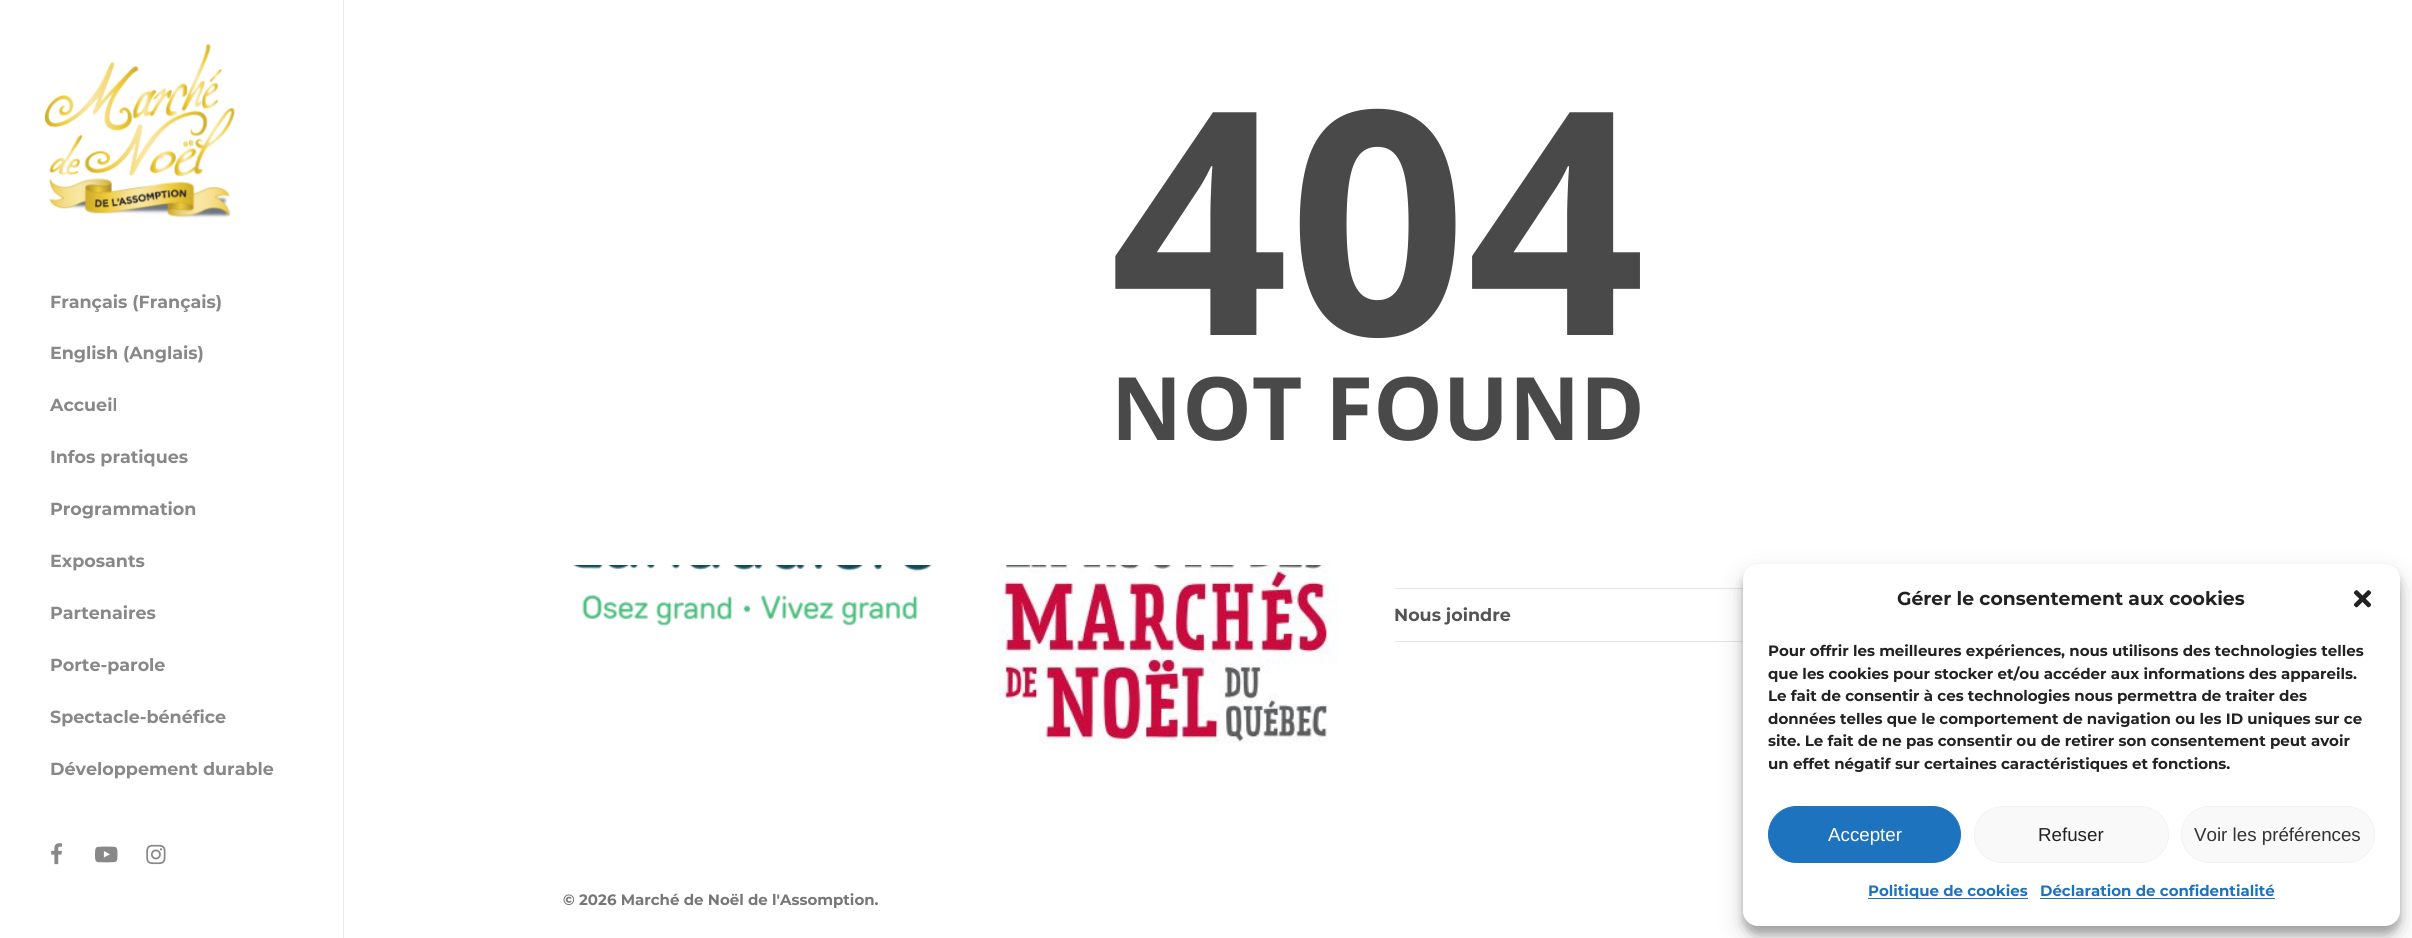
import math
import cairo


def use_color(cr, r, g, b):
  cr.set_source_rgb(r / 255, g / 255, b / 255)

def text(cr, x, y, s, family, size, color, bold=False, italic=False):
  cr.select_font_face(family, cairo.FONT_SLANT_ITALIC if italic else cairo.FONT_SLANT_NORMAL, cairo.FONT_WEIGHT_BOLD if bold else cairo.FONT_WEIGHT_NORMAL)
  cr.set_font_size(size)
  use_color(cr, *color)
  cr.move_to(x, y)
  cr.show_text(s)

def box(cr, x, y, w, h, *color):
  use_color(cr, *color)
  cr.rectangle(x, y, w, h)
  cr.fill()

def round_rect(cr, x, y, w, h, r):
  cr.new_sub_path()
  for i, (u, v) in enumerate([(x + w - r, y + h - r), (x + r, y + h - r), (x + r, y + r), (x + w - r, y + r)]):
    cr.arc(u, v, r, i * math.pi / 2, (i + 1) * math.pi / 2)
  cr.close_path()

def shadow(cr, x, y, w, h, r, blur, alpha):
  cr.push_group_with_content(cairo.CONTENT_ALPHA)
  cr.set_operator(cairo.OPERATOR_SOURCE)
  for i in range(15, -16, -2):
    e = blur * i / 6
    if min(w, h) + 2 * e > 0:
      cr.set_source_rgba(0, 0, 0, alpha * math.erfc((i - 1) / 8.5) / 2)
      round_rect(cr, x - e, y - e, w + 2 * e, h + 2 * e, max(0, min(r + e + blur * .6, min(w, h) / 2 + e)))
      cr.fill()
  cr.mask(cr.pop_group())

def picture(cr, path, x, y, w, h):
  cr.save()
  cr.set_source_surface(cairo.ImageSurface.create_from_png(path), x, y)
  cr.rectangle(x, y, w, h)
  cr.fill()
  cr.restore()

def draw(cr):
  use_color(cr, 255, 255, 255)
  cr.paint()
  box(cr, 343, 0, 1, 938, 237, 237, 237)
  picture(cr, "img_01.png", 44, 44, 191, 174)
  picture(cr, "img_02.png", 51, 843, 12, 22)
  picture(cr, "img_03.png", 95, 846, 23, 17)
  picture(cr, "img_04.png", 146, 844, 20, 21)
  picture(cr, "img_05.png", 572, 565, 361, 62)
  picture(cr, "img_06.png", 998, 565, 341, 180)
  box(cr, 1395, 588, 348, 1, 230, 230, 230)
  box(cr, 1395, 641, 348, 1, 230, 230, 230)
  use_color(cr, 0, 0, 0)
  shadow(cr, 1743, 571, 657, 363, 15, 4, 0.23)
  shadow(cr, 1743, 576, 657, 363, 15, 12.5, 0.19)
  use_color(cr, 255, 255, 255)
  round_rect(cr, 1743, 564, 657, 362, 15)
  cr.fill()
  picture(cr, "img_07.png", 2353, 590, 19, 18)
  use_color(cr, 30, 115, 190)
  round_rect(cr, 1768.5, 806.5, 192, 56, 28)
  cr.fill_preserve()
  cr.set_line_width(1)
  cr.stroke()
  use_color(cr, 249, 249, 249)
  round_rect(cr, 1974.5, 806.5, 194, 56, 28)
  cr.fill_preserve()
  use_color(cr, 242, 242, 242)
  cr.stroke()
  use_color(cr, 249, 249, 249)
  round_rect(cr, 2181.5, 806.5, 193, 56, 28)
  cr.fill_preserve()
  use_color(cr, 242, 242, 242)
  cr.stroke()
  box(cr, 1868, 898, 160, 1, 30, 115, 190)
  box(cr, 2040, 898, 235, 1, 30, 115, 190)
  text(cr, 50, 308, "Français (Français)", "Montserrat Thin", 17.5, (136, 136, 136))
  text(cr, 50, 359, "English (Anglais)", "Montserrat Thin", 17.5, (136, 136, 136))
  text(cr, 50, 411, "Accueil", "Montserrat Thin", 17.5, (136, 136, 136))
  text(cr, 50, 463, "Infos pratiques", "Montserrat Thin", 17.5, (136, 136, 136))
  text(cr, 50, 515, "Programmation", "Montserrat Thin", 17.5, (136, 136, 136))
  text(cr, 50, 567, "Exposants", "Montserrat Thin", 17.5, (136, 136, 136))
  text(cr, 50, 619, "Partenaires", "Montserrat Thin", 17.5, (136, 136, 136))
  text(cr, 50, 671, "Porte-parole", "Montserrat Thin", 17.5, (136, 136, 136))
  text(cr, 50, 723, "Spectacle-bénéfice", "Montserrat Thin", 17.5, (136, 136, 136))
  text(cr, 50, 775, "Développement durable", "Montserrat Thin", 17.5, (136, 136, 136))
  text(cr, 1110, 335, "404", "Open Sans", 312, (73, 73, 73), bold=True)
  text(cr, 1111, 440, "NOT FOUND", "Open Sans", 87.5, (73, 73, 73), bold=True)
  text(cr, 1394, 621, "Nous joindre", "Montserrat Thin", 17.5, (84, 84, 84))
  text(cr, 563, 905, "© 2026 Marché de Noël de l'Assomption.", "Montserrat Thin", 15, (119, 119, 119))
  text(cr, 1897, 605, "Gérer le consentement aux cookies", "Montserrat Thin", 18.75, (34, 34, 34))
  text(cr, 1768, 656, "Pour offrir les meilleures expériences, nous utilisons des technologies telles", "Montserrat Thin", 15, (34, 34, 34))
  text(cr, 1768, 679, "que les cookies pour stocker et/ou accéder aux informations des appareils.", "Montserrat Thin", 15, (34, 34, 34))
  text(cr, 1768, 701, "Le fait de consentir à ces technologies nous permettra de traiter des", "Montserrat Thin", 15, (34, 34, 34))
  text(cr, 1768, 724, "données telles que le comportement de navigation ou les ID uniques sur ce", "Montserrat Thin", 15, (34, 34, 34))
  text(cr, 1768, 746, "site. Le fait de ne pas consentir ou de retirer son consentement peut avoir", "Montserrat Thin", 15, (34, 34, 34))
  text(cr, 1768, 769, "un effet négatif sur certaines caractéristiques et fonctions.", "Montserrat Thin", 15, (34, 34, 34))
  text(cr, 1828, 841, "Accepter", "Liberation Sans", 18.75, (255, 255, 255))
  text(cr, 2038, 841, "Refuser", "Liberation Sans", 18.75, (34, 34, 34))
  text(cr, 2194, 841, "Voir les préférences", "Liberation Sans", 18.75, (51, 51, 51))
  text(cr, 1868, 896, "Politique de cookies", "Montserrat Thin", 15, (30, 115, 190))
  text(cr, 2040, 896, "Déclaration de confidentialité", "Montserrat Thin", 15, (30, 115, 190))


surface = cairo.ImageSurface(cairo.FORMAT_RGB24, 2412, 938)
cr = cairo.Context(surface)
options = cairo.FontOptions()
options.set_hint_metrics(cairo.HINT_METRICS_OFF)
options.set_hint_style(cairo.HINT_STYLE_NONE)
cr.set_font_options(options)
cr.set_miter_limit(4)
draw(cr)
surface.write_to_png("out.png")
